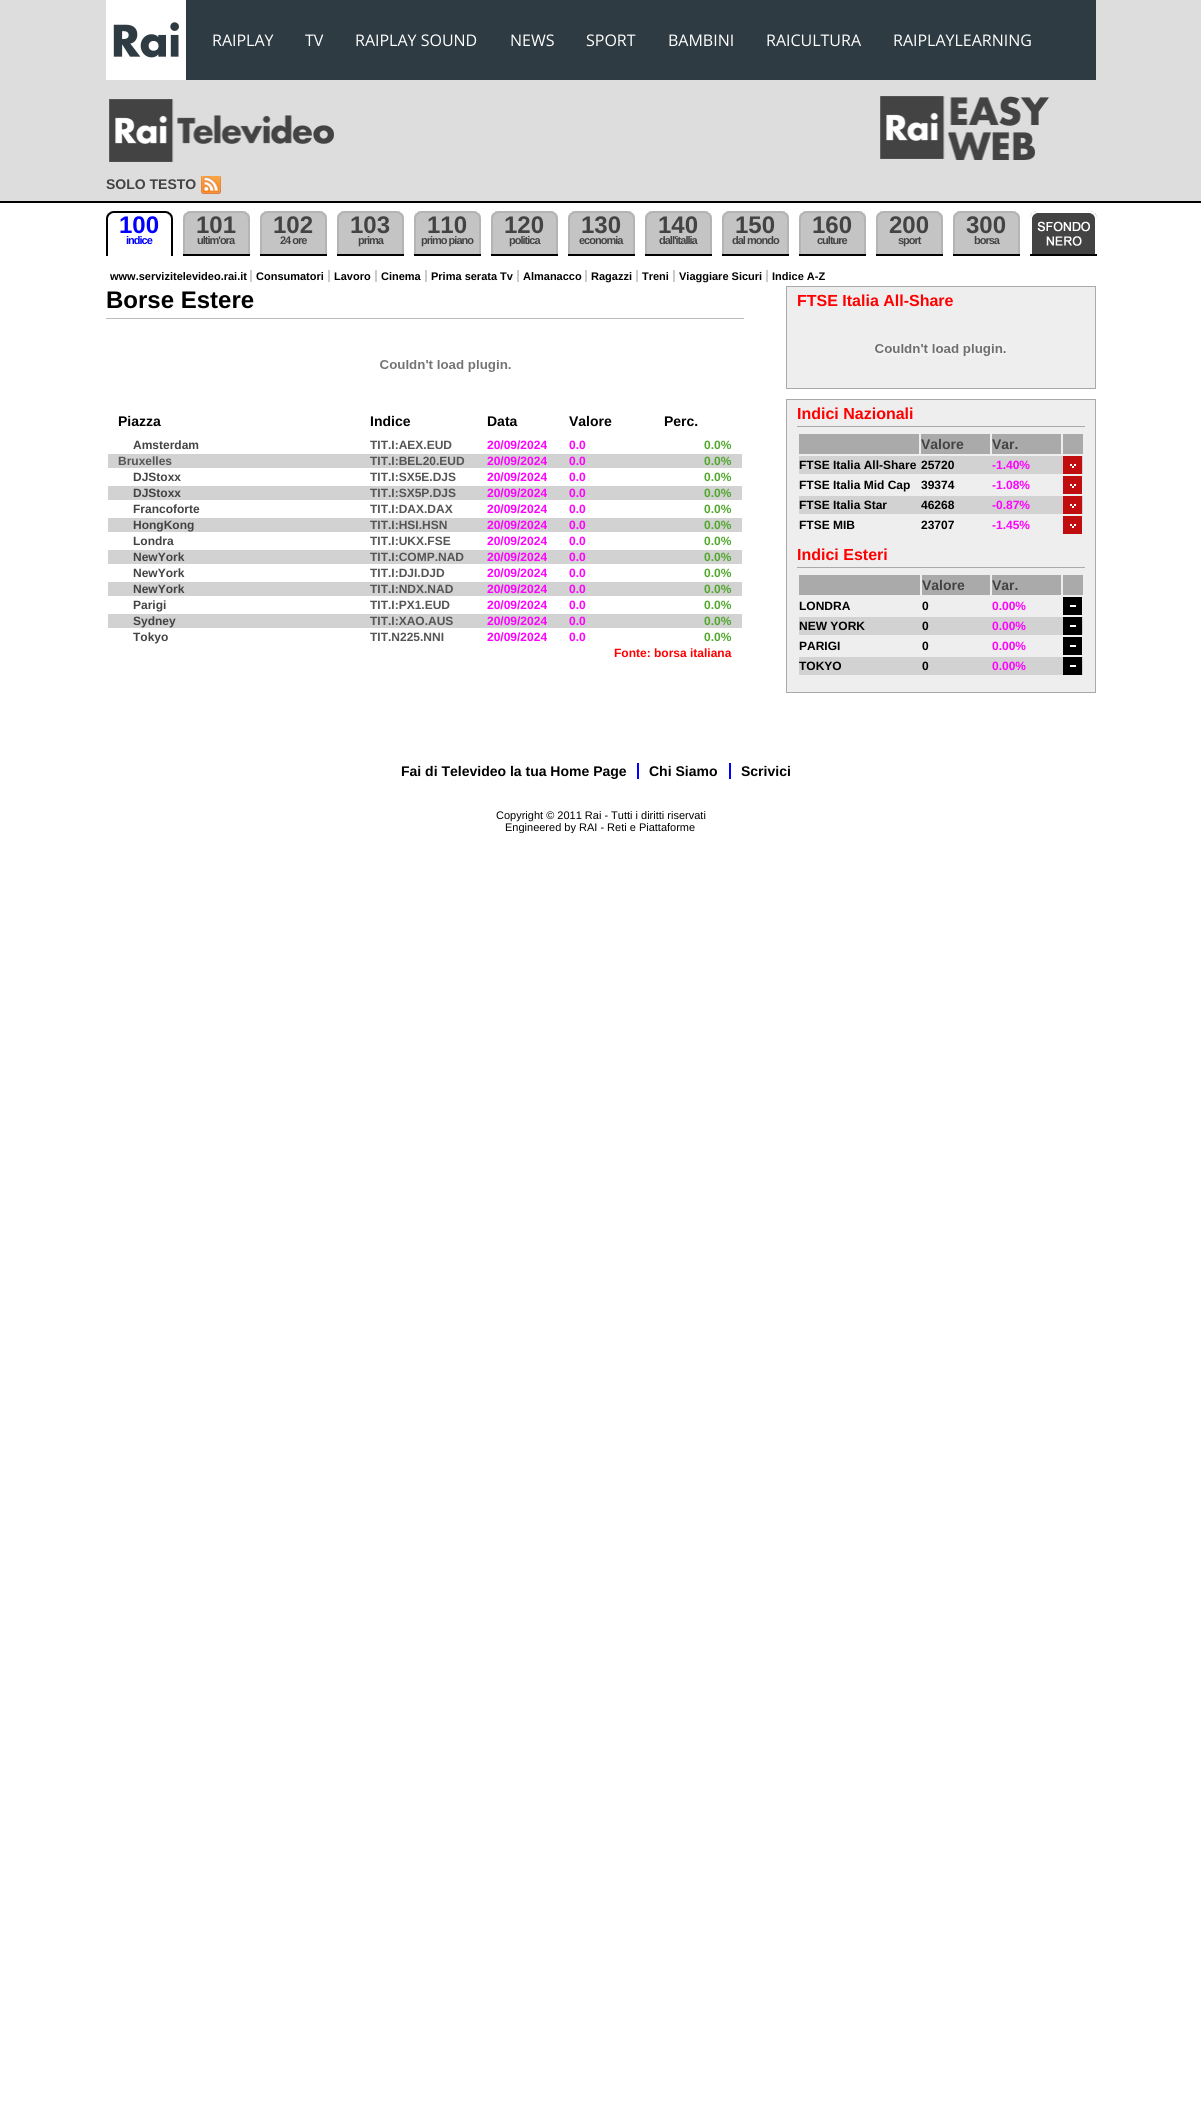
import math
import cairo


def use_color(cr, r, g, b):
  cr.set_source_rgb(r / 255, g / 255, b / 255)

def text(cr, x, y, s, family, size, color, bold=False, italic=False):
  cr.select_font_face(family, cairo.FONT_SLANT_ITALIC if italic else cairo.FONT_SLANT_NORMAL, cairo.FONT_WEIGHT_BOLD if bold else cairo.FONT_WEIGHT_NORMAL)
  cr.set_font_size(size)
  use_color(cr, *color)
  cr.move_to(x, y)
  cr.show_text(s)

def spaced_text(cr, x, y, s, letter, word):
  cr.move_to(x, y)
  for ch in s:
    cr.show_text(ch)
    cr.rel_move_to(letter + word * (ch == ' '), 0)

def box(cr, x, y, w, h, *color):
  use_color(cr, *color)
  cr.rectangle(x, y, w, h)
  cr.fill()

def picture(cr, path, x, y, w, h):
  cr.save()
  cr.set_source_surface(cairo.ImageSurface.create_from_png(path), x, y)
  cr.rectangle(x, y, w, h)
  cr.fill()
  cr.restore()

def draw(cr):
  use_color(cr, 255, 255, 255)
  cr.paint()
  picture(cr, "img_01.png", 0, 0, 1201, 203)
  box(cr, 113, 0, 983, 80, 46, 59, 66)
  picture(cr, "img_02.png", 106, 0, 80, 80)
  picture(cr, "img_03.png", 109, 99, 225, 63)
  picture(cr, "img_04.png", 880, 96, 169, 64)
  picture(cr, "img_05.png", 201, 176, 20, 18)
  picture(cr, "img_06.png", 106, 211, 67, 45)
  picture(cr, "img_07.png", 183, 211, 67, 45)
  picture(cr, "img_07.png", 260, 211, 67, 45)
  picture(cr, "img_07.png", 337, 211, 67, 45)
  picture(cr, "img_07.png", 414, 211, 67, 45)
  picture(cr, "img_07.png", 491, 211, 67, 45)
  picture(cr, "img_07.png", 568, 211, 67, 45)
  picture(cr, "img_07.png", 645, 211, 67, 45)
  picture(cr, "img_07.png", 722, 211, 67, 45)
  picture(cr, "img_07.png", 799, 211, 67, 45)
  picture(cr, "img_07.png", 876, 211, 67, 45)
  picture(cr, "img_07.png", 953, 211, 67, 45)
  picture(cr, "img_08.png", 1030, 211, 67, 45)
  box(cr, 250, 270, 2, 12, 204, 204, 204)
  box(cr, 328, 270, 2, 12, 204, 204, 204)
  box(cr, 375, 270, 2, 12, 204, 204, 204)
  box(cr, 425, 270, 2, 12, 204, 204, 204)
  box(cr, 517, 270, 2, 12, 204, 204, 204)
  box(cr, 585, 270, 2, 12, 204, 204, 204)
  box(cr, 636, 270, 2, 12, 204, 204, 204)
  box(cr, 673, 270, 2, 12, 204, 204, 204)
  box(cr, 766, 270, 2, 12, 204, 204, 204)
  box(cr, 106, 318, 638, 1, 187, 187, 187)
  picture(cr, "img_09.png", 380, 360, 131, 12)
  box(cr, 108, 454, 634, 14, 210, 210, 210)
  box(cr, 108, 486, 634, 14, 210, 210, 210)
  box(cr, 108, 518, 634, 14, 210, 210, 210)
  box(cr, 108, 550, 634, 14, 210, 210, 210)
  box(cr, 108, 582, 634, 14, 210, 210, 210)
  box(cr, 108, 614, 634, 14, 210, 210, 210)
  use_color(cr, 238, 238, 238)
  cr.rectangle(786.5, 286.5, 309, 102)
  cr.fill_preserve()
  use_color(cr, 170, 170, 170)
  cr.set_line_width(1)
  cr.stroke()
  picture(cr, "img_10.png", 875, 344, 131, 12)
  use_color(cr, 238, 238, 238)
  cr.rectangle(786.5, 399.5, 309, 293)
  cr.fill_preserve()
  use_color(cr, 170, 170, 170)
  cr.stroke()
  box(cr, 797, 426, 288, 1, 170, 170, 170)
  box(cr, 799, 434, 120, 20, 170, 170, 170)
  box(cr, 921, 434, 69, 20, 170, 170, 170)
  box(cr, 992, 434, 69, 20, 170, 170, 170)
  box(cr, 1063, 434, 20, 20, 170, 170, 170)
  box(cr, 799, 456, 284, 18, 210, 210, 210)
  picture(cr, "img_11.png", 1063, 456, 19, 18)
  picture(cr, "img_11.png", 1063, 476, 19, 18)
  box(cr, 799, 496, 284, 18, 210, 210, 210)
  picture(cr, "img_11.png", 1063, 496, 19, 18)
  picture(cr, "img_11.png", 1063, 516, 19, 18)
  box(cr, 797, 567, 288, 1, 170, 170, 170)
  box(cr, 799, 575, 121, 20, 170, 170, 170)
  box(cr, 922, 575, 68, 20, 170, 170, 170)
  box(cr, 992, 575, 69, 20, 170, 170, 170)
  box(cr, 1063, 575, 20, 20, 170, 170, 170)
  picture(cr, "img_12.png", 1063, 597, 19, 18)
  box(cr, 799, 617, 284, 18, 210, 210, 210)
  picture(cr, "img_12.png", 1063, 617, 19, 18)
  picture(cr, "img_12.png", 1063, 637, 19, 18)
  box(cr, 799, 657, 284, 18, 210, 210, 210)
  picture(cr, "img_12.png", 1063, 657, 19, 18)
  box(cr, 637, 763, 2, 16, 0, 0, 255)
  box(cr, 729, 763, 2, 16, 0, 0, 255)
  text(cr, 212, 46, "RAIPLAY", "Open Sans", 16, (255, 255, 255))
  text(cr, 305, 46, "TV", "Open Sans", 16, (255, 255, 255))
  text(cr, 355, 46, "RAIPLAY SOUND", "Open Sans", 16, (255, 255, 255))
  text(cr, 510, 46, "NEWS", "Open Sans", 16, (255, 255, 255))
  text(cr, 586, 46, "SPORT", "Open Sans", 16, (255, 255, 255))
  text(cr, 668, 46, "BAMBINI", "Open Sans", 16, (255, 255, 255))
  text(cr, 766, 46, "RAICULTURA", "Open Sans", 16, (255, 255, 255))
  text(cr, 893, 46, "RAIPLAYLEARNING", "Open Sans", 16, (255, 255, 255))
  text(cr, 106, 189, "SOLO TESTO", "Liberation Sans", 14, (67, 67, 67), bold=True)
  text(cr, 119, 233, "100", "Liberation Sans", 24, (0, 0, 255), bold=True)
  cr.set_font_size(11)
  spaced_text(cr, 126, 244, "indice", -1, 0)
  text(cr, 196, 233, "101", "Liberation Sans", 24, (67, 67, 67), bold=True)
  cr.set_font_size(11)
  spaced_text(cr, 197, 244, "ultim'ora", -1, 0)
  text(cr, 273, 233, "102", "Liberation Sans", 24, (67, 67, 67), bold=True)
  cr.set_font_size(11)
  spaced_text(cr, 280, 244, "24 ore", -1, 0)
  text(cr, 350, 233, "103", "Liberation Sans", 24, (67, 67, 67), bold=True)
  cr.set_font_size(11)
  spaced_text(cr, 358, 244, "prima", -1, 0)
  text(cr, 427, 233, "110", "Liberation Sans", 24, (67, 67, 67), bold=True)
  cr.set_font_size(11)
  spaced_text(cr, 421, 244, "primo piano", -1, 0)
  text(cr, 504, 233, "120", "Liberation Sans", 24, (67, 67, 67), bold=True)
  cr.set_font_size(11)
  spaced_text(cr, 509, 244, "politica", -1, 0)
  text(cr, 581, 233, "130", "Liberation Sans", 24, (67, 67, 67), bold=True)
  cr.set_font_size(11)
  spaced_text(cr, 579, 244, "economia", -1, 0)
  text(cr, 658, 233, "140", "Liberation Sans", 24, (67, 67, 67), bold=True)
  cr.set_font_size(11)
  spaced_text(cr, 659, 244, "dall'itallia", -1, 0)
  text(cr, 735, 233, "150", "Liberation Sans", 24, (67, 67, 67), bold=True)
  cr.set_font_size(11)
  spaced_text(cr, 732, 244, "dal mondo", -1, 0)
  text(cr, 812, 233, "160", "Liberation Sans", 24, (67, 67, 67), bold=True)
  cr.set_font_size(11)
  spaced_text(cr, 817, 244, "culture", -1, 0)
  text(cr, 889, 233, "200", "Liberation Sans", 24, (67, 67, 67), bold=True)
  cr.set_font_size(11)
  spaced_text(cr, 898, 244, "sport", -1, 0)
  text(cr, 966, 233, "300", "Liberation Sans", 24, (67, 67, 67), bold=True)
  cr.set_font_size(11)
  spaced_text(cr, 974, 244, "borsa", -1, 0)
  text(cr, 110, 280, "www.servizitelevideo.rai.it", "Liberation Sans", 11, (0, 0, 0), bold=True)
  text(cr, 256, 280, "Consumatori", "Liberation Sans", 11, (0, 0, 0), bold=True)
  text(cr, 334, 280, "Lavoro", "Liberation Sans", 11, (0, 0, 0), bold=True)
  text(cr, 381, 280, "Cinema", "Liberation Sans", 11, (0, 0, 0), bold=True)
  text(cr, 431, 280, "Prima serata Tv", "Liberation Sans", 11, (0, 0, 0), bold=True)
  text(cr, 523, 280, "Almanacco", "Liberation Sans", 11, (0, 0, 0), bold=True)
  text(cr, 591, 280, "Ragazzi", "Liberation Sans", 11, (0, 0, 0), bold=True)
  text(cr, 642, 280, "Treni", "Liberation Sans", 11, (0, 0, 0), bold=True)
  text(cr, 679, 280, "Viaggiare Sicuri", "Liberation Sans", 11, (0, 0, 0), bold=True)
  text(cr, 772, 280, "Indice A-Z", "Liberation Sans", 11, (0, 0, 0), bold=True)
  text(cr, 106, 308, "Borse Estere", "Liberation Sans", 24, (0, 0, 0), bold=True)
  text(cr, 118, 426, "Piazza", "Liberation Sans", 14, (0, 0, 0), bold=True)
  text(cr, 370, 426, "Indice", "Liberation Sans", 14, (0, 0, 0), bold=True)
  text(cr, 487, 426, "Data", "Liberation Sans", 14, (0, 0, 0), bold=True)
  text(cr, 569, 426, "Valore", "Liberation Sans", 14, (0, 0, 0), bold=True)
  text(cr, 664, 426, "Perc.", "Liberation Sans", 14, (0, 0, 0), bold=True)
  text(cr, 133, 449, "Amsterdam", "Liberation Sans", 12, (67, 67, 67), bold=True)
  text(cr, 370, 449, "TIT.I:AEX.EUD", "Liberation Sans", 12, (85, 85, 85), bold=True)
  text(cr, 487, 449, "20/09/2024", "Liberation Sans", 12, (255, 0, 255), bold=True)
  text(cr, 569, 449, "0.0", "Liberation Sans", 12, (255, 0, 255), bold=True)
  text(cr, 704, 449, "0.0%", "Liberation Sans", 12, (82, 168, 45), bold=True)
  text(cr, 118, 465, "Bruxelles", "Liberation Sans", 12, (85, 85, 85), bold=True)
  text(cr, 370, 465, "TIT.I:BEL20.EUD", "Liberation Sans", 12, (85, 85, 85), bold=True)
  text(cr, 487, 465, "20/09/2024", "Liberation Sans", 12, (255, 0, 255), bold=True)
  text(cr, 569, 465, "0.0", "Liberation Sans", 12, (255, 0, 255), bold=True)
  text(cr, 704, 465, "0.0%", "Liberation Sans", 12, (82, 168, 45), bold=True)
  text(cr, 133, 481, "DJStoxx", "Liberation Sans", 12, (67, 67, 67), bold=True)
  text(cr, 370, 481, "TIT.I:SX5E.DJS", "Liberation Sans", 12, (85, 85, 85), bold=True)
  text(cr, 487, 481, "20/09/2024", "Liberation Sans", 12, (255, 0, 255), bold=True)
  text(cr, 569, 481, "0.0", "Liberation Sans", 12, (255, 0, 255), bold=True)
  text(cr, 704, 481, "0.0%", "Liberation Sans", 12, (82, 168, 45), bold=True)
  text(cr, 133, 497, "DJStoxx", "Liberation Sans", 12, (67, 67, 67), bold=True)
  text(cr, 370, 497, "TIT.I:SX5P.DJS", "Liberation Sans", 12, (85, 85, 85), bold=True)
  text(cr, 487, 497, "20/09/2024", "Liberation Sans", 12, (255, 0, 255), bold=True)
  text(cr, 569, 497, "0.0", "Liberation Sans", 12, (255, 0, 255), bold=True)
  text(cr, 704, 497, "0.0%", "Liberation Sans", 12, (82, 168, 45), bold=True)
  text(cr, 133, 513, "Francoforte", "Liberation Sans", 12, (67, 67, 67), bold=True)
  text(cr, 370, 513, "TIT.I:DAX.DAX", "Liberation Sans", 12, (85, 85, 85), bold=True)
  text(cr, 487, 513, "20/09/2024", "Liberation Sans", 12, (255, 0, 255), bold=True)
  text(cr, 569, 513, "0.0", "Liberation Sans", 12, (255, 0, 255), bold=True)
  text(cr, 704, 513, "0.0%", "Liberation Sans", 12, (82, 168, 45), bold=True)
  text(cr, 133, 529, "HongKong", "Liberation Sans", 12, (67, 67, 67), bold=True)
  text(cr, 370, 529, "TIT.I:HSI.HSN", "Liberation Sans", 12, (85, 85, 85), bold=True)
  text(cr, 487, 529, "20/09/2024", "Liberation Sans", 12, (255, 0, 255), bold=True)
  text(cr, 569, 529, "0.0", "Liberation Sans", 12, (255, 0, 255), bold=True)
  text(cr, 704, 529, "0.0%", "Liberation Sans", 12, (82, 168, 45), bold=True)
  text(cr, 133, 545, "Londra", "Liberation Sans", 12, (67, 67, 67), bold=True)
  text(cr, 370, 545, "TIT.I:UKX.FSE", "Liberation Sans", 12, (85, 85, 85), bold=True)
  text(cr, 487, 545, "20/09/2024", "Liberation Sans", 12, (255, 0, 255), bold=True)
  text(cr, 569, 545, "0.0", "Liberation Sans", 12, (255, 0, 255), bold=True)
  text(cr, 704, 545, "0.0%", "Liberation Sans", 12, (82, 168, 45), bold=True)
  text(cr, 133, 561, "NewYork", "Liberation Sans", 12, (67, 67, 67), bold=True)
  text(cr, 370, 561, "TIT.I:COMP.NAD", "Liberation Sans", 12, (85, 85, 85), bold=True)
  text(cr, 487, 561, "20/09/2024", "Liberation Sans", 12, (255, 0, 255), bold=True)
  text(cr, 569, 561, "0.0", "Liberation Sans", 12, (255, 0, 255), bold=True)
  text(cr, 704, 561, "0.0%", "Liberation Sans", 12, (82, 168, 45), bold=True)
  text(cr, 133, 577, "NewYork", "Liberation Sans", 12, (67, 67, 67), bold=True)
  text(cr, 370, 577, "TIT.I:DJI.DJD", "Liberation Sans", 12, (85, 85, 85), bold=True)
  text(cr, 487, 577, "20/09/2024", "Liberation Sans", 12, (255, 0, 255), bold=True)
  text(cr, 569, 577, "0.0", "Liberation Sans", 12, (255, 0, 255), bold=True)
  text(cr, 704, 577, "0.0%", "Liberation Sans", 12, (82, 168, 45), bold=True)
  text(cr, 133, 593, "NewYork", "Liberation Sans", 12, (67, 67, 67), bold=True)
  text(cr, 370, 593, "TIT.I:NDX.NAD", "Liberation Sans", 12, (85, 85, 85), bold=True)
  text(cr, 487, 593, "20/09/2024", "Liberation Sans", 12, (255, 0, 255), bold=True)
  text(cr, 569, 593, "0.0", "Liberation Sans", 12, (255, 0, 255), bold=True)
  text(cr, 704, 593, "0.0%", "Liberation Sans", 12, (82, 168, 45), bold=True)
  text(cr, 133, 609, "Parigi", "Liberation Sans", 12, (67, 67, 67), bold=True)
  text(cr, 370, 609, "TIT.I:PX1.EUD", "Liberation Sans", 12, (85, 85, 85), bold=True)
  text(cr, 487, 609, "20/09/2024", "Liberation Sans", 12, (255, 0, 255), bold=True)
  text(cr, 569, 609, "0.0", "Liberation Sans", 12, (255, 0, 255), bold=True)
  text(cr, 704, 609, "0.0%", "Liberation Sans", 12, (82, 168, 45), bold=True)
  text(cr, 133, 625, "Sydney", "Liberation Sans", 12, (67, 67, 67), bold=True)
  text(cr, 370, 625, "TIT.I:XAO.AUS", "Liberation Sans", 12, (85, 85, 85), bold=True)
  text(cr, 487, 625, "20/09/2024", "Liberation Sans", 12, (255, 0, 255), bold=True)
  text(cr, 569, 625, "0.0", "Liberation Sans", 12, (255, 0, 255), bold=True)
  text(cr, 704, 625, "0.0%", "Liberation Sans", 12, (82, 168, 45), bold=True)
  text(cr, 133, 641, "Tokyo", "Liberation Sans", 12, (67, 67, 67), bold=True)
  text(cr, 370, 641, "TIT.N225.NNI", "Liberation Sans", 12, (85, 85, 85), bold=True)
  text(cr, 487, 641, "20/09/2024", "Liberation Sans", 12, (255, 0, 255), bold=True)
  text(cr, 569, 641, "0.0", "Liberation Sans", 12, (255, 0, 255), bold=True)
  text(cr, 704, 641, "0.0%", "Liberation Sans", 12, (82, 168, 45), bold=True)
  text(cr, 614, 657, "Fonte: borsa italiana", "Liberation Sans", 12, (255, 0, 0), bold=True)
  text(cr, 797, 306, "FTSE Italia All-Share", "Liberation Sans", 16, (255, 0, 0), bold=True)
  text(cr, 797, 419, "Indici Nazionali", "Liberation Sans", 16, (255, 0, 0), bold=True)
  text(cr, 921, 449, "Valore", "Liberation Sans", 14, (67, 67, 67), bold=True)
  text(cr, 992, 449, "Var.", "Liberation Sans", 14, (67, 67, 67), bold=True)
  text(cr, 799, 469, "FTSE Italia All-Share", "Liberation Sans", 12, (0, 0, 0), bold=True)
  text(cr, 921, 469, "25720", "Liberation Sans", 12, (0, 0, 0), bold=True)
  text(cr, 992, 469, "-1.40%", "Liberation Sans", 12, (255, 0, 255), bold=True)
  text(cr, 799, 489, "FTSE Italia Mid Cap", "Liberation Sans", 12, (0, 0, 0), bold=True)
  text(cr, 921, 489, "39374", "Liberation Sans", 12, (0, 0, 0), bold=True)
  text(cr, 992, 489, "-1.08%", "Liberation Sans", 12, (255, 0, 255), bold=True)
  text(cr, 799, 509, "FTSE Italia Star", "Liberation Sans", 12, (0, 0, 0), bold=True)
  text(cr, 921, 509, "46268", "Liberation Sans", 12, (0, 0, 0), bold=True)
  text(cr, 992, 509, "-0.87%", "Liberation Sans", 12, (255, 0, 255), bold=True)
  text(cr, 799, 529, "FTSE MIB", "Liberation Sans", 12, (0, 0, 0), bold=True)
  text(cr, 921, 529, "23707", "Liberation Sans", 12, (0, 0, 0), bold=True)
  text(cr, 992, 529, "-1.45%", "Liberation Sans", 12, (255, 0, 255), bold=True)
  text(cr, 797, 560, "Indici Esteri", "Liberation Sans", 16, (255, 0, 0), bold=True)
  text(cr, 922, 590, "Valore", "Liberation Sans", 14, (67, 67, 67), bold=True)
  text(cr, 992, 590, "Var.", "Liberation Sans", 14, (67, 67, 67), bold=True)
  text(cr, 799, 610, "LONDRA", "Liberation Sans", 12, (0, 0, 0), bold=True)
  text(cr, 922, 610, "0", "Liberation Sans", 12, (0, 0, 0), bold=True)
  text(cr, 992, 610, "0.00%", "Liberation Sans", 12, (255, 0, 255), bold=True)
  text(cr, 799, 630, "NEW YORK", "Liberation Sans", 12, (0, 0, 0), bold=True)
  text(cr, 922, 630, "0", "Liberation Sans", 12, (0, 0, 0), bold=True)
  text(cr, 992, 630, "0.00%", "Liberation Sans", 12, (255, 0, 255), bold=True)
  text(cr, 799, 650, "PARIGI", "Liberation Sans", 12, (0, 0, 0), bold=True)
  text(cr, 922, 650, "0", "Liberation Sans", 12, (0, 0, 0), bold=True)
  text(cr, 992, 650, "0.00%", "Liberation Sans", 12, (255, 0, 255), bold=True)
  text(cr, 799, 670, "TOKYO", "Liberation Sans", 12, (0, 0, 0), bold=True)
  text(cr, 922, 670, "0", "Liberation Sans", 12, (0, 0, 0), bold=True)
  text(cr, 992, 670, "0.00%", "Liberation Sans", 12, (255, 0, 255), bold=True)
  text(cr, 401, 776, "Fai di Televideo la tua Home Page", "Liberation Sans", 14, (0, 0, 0), bold=True)
  text(cr, 649, 776, "Chi Siamo", "Liberation Sans", 14, (0, 0, 0), bold=True)
  text(cr, 741, 776, "Scrivici", "Liberation Sans", 14, (0, 0, 0), bold=True)
  text(cr, 496, 819, "Copyright © 2011 Rai - Tutti i diritti riservati", "Liberation Sans", 11, (0, 0, 0))
  cr.save()
  cr.rectangle(252, 779, 697, 54)
  cr.clip()
  text(cr, 505, 831, "Engineered by RAI - Reti e Piattaforme", "Liberation Sans", 11, (0, 0, 0))
  cr.restore()


surface = cairo.ImageSurface(cairo.FORMAT_RGB24, 1201, 2104)
cr = cairo.Context(surface)
options = cairo.FontOptions()
options.set_hint_metrics(cairo.HINT_METRICS_OFF)
options.set_hint_style(cairo.HINT_STYLE_NONE)
cr.set_font_options(options)
cr.set_miter_limit(4)
draw(cr)
surface.write_to_png("out.png")
